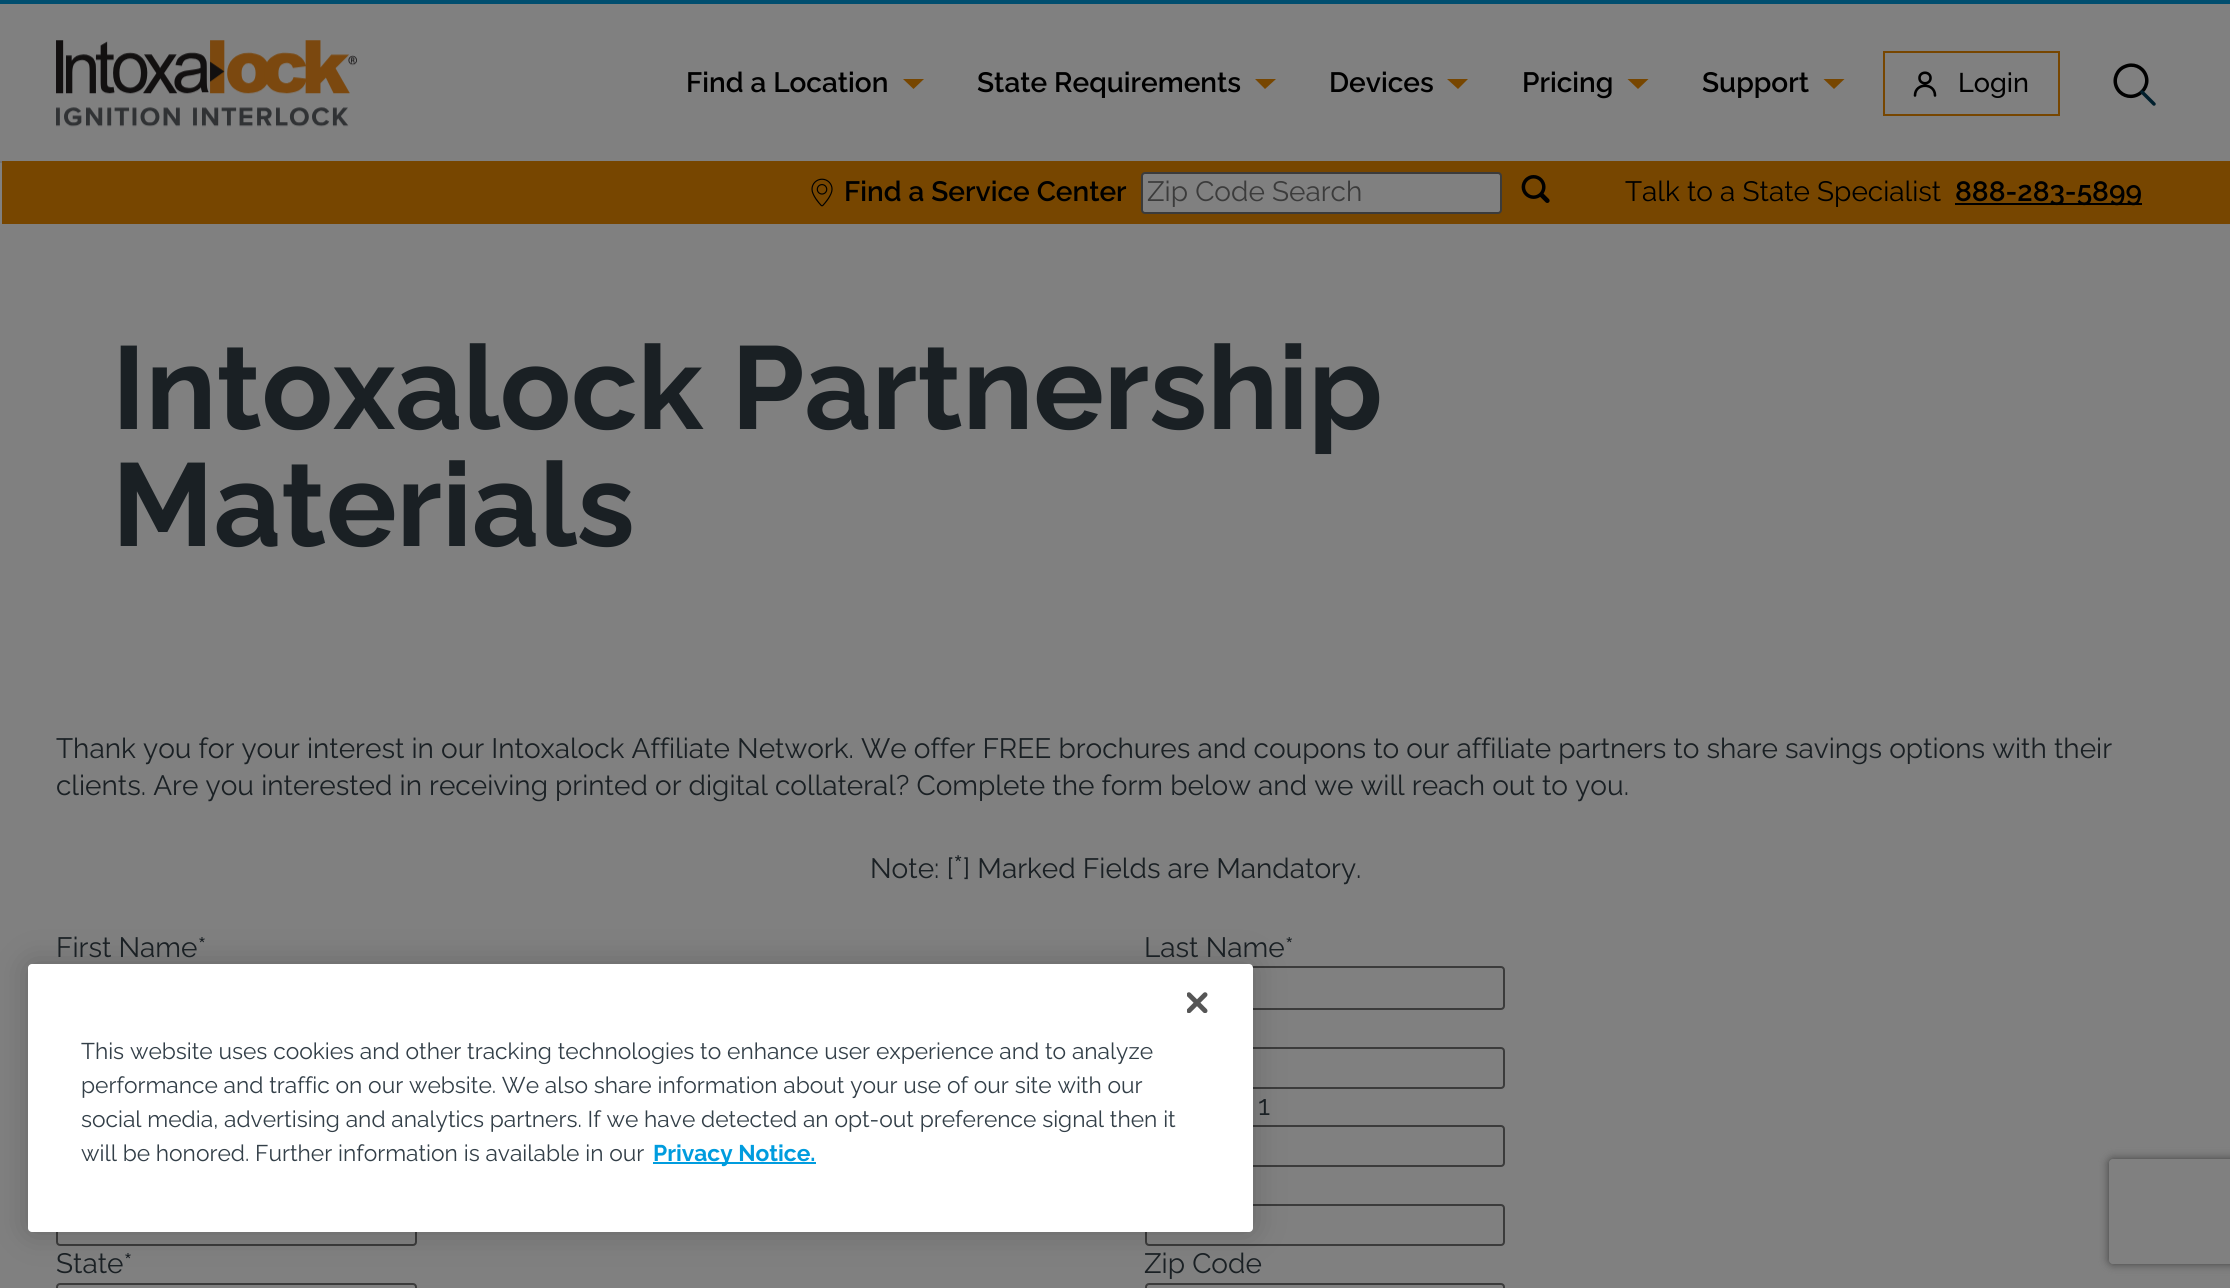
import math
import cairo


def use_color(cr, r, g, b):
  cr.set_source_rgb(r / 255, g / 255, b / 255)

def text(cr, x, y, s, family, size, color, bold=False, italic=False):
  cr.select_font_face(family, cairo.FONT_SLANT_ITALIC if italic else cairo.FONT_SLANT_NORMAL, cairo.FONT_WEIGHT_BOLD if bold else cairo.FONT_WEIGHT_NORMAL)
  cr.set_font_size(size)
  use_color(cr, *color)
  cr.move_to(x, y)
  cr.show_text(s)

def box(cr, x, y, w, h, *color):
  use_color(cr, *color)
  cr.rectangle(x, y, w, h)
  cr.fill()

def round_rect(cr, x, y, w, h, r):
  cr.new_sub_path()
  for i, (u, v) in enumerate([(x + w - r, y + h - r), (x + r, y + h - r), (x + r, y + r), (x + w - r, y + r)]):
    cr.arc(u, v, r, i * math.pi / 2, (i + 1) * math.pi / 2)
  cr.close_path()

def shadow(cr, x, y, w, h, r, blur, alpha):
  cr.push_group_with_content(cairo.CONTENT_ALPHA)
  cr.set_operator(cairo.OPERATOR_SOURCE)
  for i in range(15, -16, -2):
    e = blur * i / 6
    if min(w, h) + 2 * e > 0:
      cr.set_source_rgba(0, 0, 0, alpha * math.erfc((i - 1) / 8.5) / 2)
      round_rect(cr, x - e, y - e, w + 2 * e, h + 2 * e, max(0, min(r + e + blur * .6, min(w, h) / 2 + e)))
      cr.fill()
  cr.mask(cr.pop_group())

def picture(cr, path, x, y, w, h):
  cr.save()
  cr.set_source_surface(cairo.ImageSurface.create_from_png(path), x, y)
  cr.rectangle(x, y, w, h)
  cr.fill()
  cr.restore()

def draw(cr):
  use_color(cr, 128, 128, 128)
  cr.paint()
  box(cr, 0, 0, 2230, 4, 0, 78, 111)
  box(cr, 0, 161, 2, 2, 115, 115, 115)
  picture(cr, "img_01.png", 56, 40, 301, 87)
  use_color(cr, 119, 70, 0)
  cr.new_path()
  cr.move_to(903, 79)
  cr.line_to(924, 79)
  cr.line_to(913.5, 89)
  cr.close_path()
  cr.fill()
  cr.new_path()
  cr.move_to(1255, 79)
  cr.line_to(1276, 79)
  cr.line_to(1265, 89)
  cr.close_path()
  cr.fill()
  cr.new_path()
  cr.move_to(1447, 79)
  cr.line_to(1468, 79)
  cr.line_to(1458, 89)
  cr.close_path()
  cr.fill()
  cr.new_path()
  cr.move_to(1627.5, 79)
  cr.line_to(1648.5, 79)
  cr.line_to(1638, 89)
  cr.close_path()
  cr.fill()
  cr.new_path()
  cr.move_to(1823.5, 79)
  cr.line_to(1844.5, 79)
  cr.line_to(1834, 89)
  cr.close_path()
  cr.fill()
  cr.rectangle(1884, 52, 175, 63)
  cr.stroke()
  cr.new_path()
  cr.move_to(1919.5, 78)
  cr.curve_to(1919.5, 85, 1930.5, 85, 1930.5, 78)
  cr.curve_to(1930.5, 71, 1919.5, 71, 1919.5, 78)
  cr.close_path()
  cr.move_to(1915, 95.5)
  cr.curve_to(1915, 82.5, 1935, 82.5, 1935, 95.5)
  use_color(cr, 0, 0, 0)
  cr.set_line_width(2.6)
  cr.set_line_cap(cairo.LINE_CAP_ROUND)
  cr.set_line_join(cairo.LINE_JOIN_ROUND)
  cr.stroke()
  cr.new_path()
  cr.move_to(2125, 66.5)
  cr.curve_to(2133, 63, 2142, 66.5, 2145.5, 74.5)
  cr.curve_to(2149, 82.5, 2145, 91.5, 2137, 95)
  cr.curve_to(2129, 98.5, 2120, 95, 2116.5, 87)
  cr.curve_to(2113, 79, 2117, 69.5, 2125, 66.5)
  cr.close_path()
  cr.set_line_width(3.5)
  cr.stroke()
  cr.new_path()
  cr.move_to(2142, 92)
  cr.line_to(2154, 104)
  use_color(cr, 0, 31, 45)
  cr.stroke()
  box(cr, 2, 161, 2228, 63, 119, 70, 0)
  picture(cr, "img_02.png", 811, 178, 22, 29)
  use_color(cr, 128, 128, 128)
  round_rect(cr, 1142, 173, 359, 40, 3)
  cr.fill_preserve()
  use_color(cr, 59, 59, 59)
  cr.set_line_width(2)
  cr.set_line_cap(cairo.LINE_CAP_BUTT)
  cr.set_line_join(cairo.LINE_JOIN_MITER)
  cr.stroke()
  picture(cr, "img_03.png", 1521, 175, 29, 28)
  box(cr, 1955, 203, 187, 2, 0, 0, 0)
  round_rect(cr, 57, 1205, 359, 40, 3)
  use_color(cr, 59, 59, 59)
  cr.stroke()
  round_rect(cr, 57, 1284, 359, 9, 3)
  cr.stroke()
  round_rect(cr, 1146, 967, 358, 42, 3)
  cr.stroke()
  round_rect(cr, 1146, 1048, 358, 40, 3)
  cr.stroke()
  round_rect(cr, 1146, 1126, 358, 40, 3)
  cr.stroke()
  round_rect(cr, 1146, 1205, 358, 40, 3)
  cr.stroke()
  round_rect(cr, 1146, 1284, 358, 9, 3)
  cr.stroke()
  cr.save()
  cr.set_fill_rule(cairo.FILL_RULE_EVEN_ODD)
  cr.new_path()
  cr.move_to(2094, 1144)
  cr.line_to(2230, 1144)
  cr.line_to(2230, 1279)
  cr.line_to(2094, 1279)
  cr.close_path()
  cr.move_to(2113, 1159)
  cr.line_to(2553, 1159)
  cr.curve_to(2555, 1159, 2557, 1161, 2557, 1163)
  cr.line_to(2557, 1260)
  cr.curve_to(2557, 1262, 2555, 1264, 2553, 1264)
  cr.line_to(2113, 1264)
  cr.curve_to(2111, 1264, 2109, 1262, 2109, 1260)
  cr.line_to(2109, 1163)
  cr.curve_to(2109, 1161, 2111, 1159, 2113, 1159)
  cr.close_path()
  cr.clip()
  use_color(cr, 64, 64, 64)
  shadow(cr, 2109, 1159, 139, 105, 4, 4.5, 1)
  cr.restore()
  use_color(cr, 0, 0, 0)
  shadow(cr, 28, 964, 1225, 268, 4, 16, 0.2)
  use_color(cr, 255, 255, 255)
  round_rect(cr, 28, 964, 1225, 268, 4)
  cr.fill()
  picture(cr, "img_04.png", 1187, 992, 21, 21)
  box(cr, 653, 1162, 163, 2, 0, 156, 222)
  text(cr, 686, 92, "Find a Location", "Raleway SemiBold", 28, (0, 0, 0))
  text(cr, 977, 92, "State Requirements", "Raleway SemiBold", 28, (0, 0, 0))
  text(cr, 1329, 92, "Devices", "Raleway SemiBold", 28, (0, 0, 0))
  text(cr, 1522, 92, "Pricing", "Raleway SemiBold", 28, (0, 0, 0))
  text(cr, 1702, 92, "Support", "Raleway SemiBold", 28, (0, 0, 0))
  text(cr, 1958, 92, "Login", "Raleway Medium", 27, (0, 0, 0))
  text(cr, 844, 201, "Find a Service Center", "Raleway SemiBold", 28, (0, 0, 0))
  text(cr, 1147, 201, "Zip Code Search", "Raleway", 28, (59, 59, 59))
  text(cr, 1625, 201, "Talk to a State Specialist", "Raleway", 28, (0, 0, 0))
  text(cr, 1955, 201, "888-283-5899", "Raleway SemiBold", 28, (0, 0, 0))
  text(cr, 112, 429, "Intoxalock Partnership", "Raleway", 117.5, (26, 32, 36), bold=True)
  text(cr, 112, 546, "Materials", "Raleway", 117.5, (26, 32, 36), bold=True)
  text(cr, 56, 758, "Thank you for your interest in our Intoxalock Affiliate Network. We offer FREE brochures and coupons to our affiliate partners to share savings options with their", "Raleway", 28, (26, 32, 36))
  text(cr, 56, 795, "clients. Are you interested in receiving printed or digital collateral? Complete the form below and we will reach out to you.", "Raleway", 28, (26, 32, 36))
  text(cr, 870, 878, "Note: [", "Raleway", 28, (26, 32, 36))
  text(cr, 953, 878, "*", "Raleway", 32, (26, 32, 36))
  text(cr, 963, 878, "] Marked Fields are Mandatory.", "Raleway", 28, (26, 32, 36))
  text(cr, 56, 957, "First Name*", "Raleway", 28, (26, 32, 36))
  text(cr, 56, 1273, "State*", "Raleway", 28, (26, 32, 36))
  text(cr, 1144, 957, "Last Name*", "Raleway", 28, (26, 32, 36))
  text(cr, 1258, 1115, "1", "Raleway", 28, (26, 32, 36))
  text(cr, 1144, 1273, "Zip Code", "Raleway", 28, (26, 32, 36))
  text(cr, 81, 1059, "This website uses cookies and other tracking technologies to enhance user experience and to analyze", "Raleway", 22.75, (51, 63, 72))
  text(cr, 81, 1093, "performance and traffic on our website. We also share information about your use of our site with our", "Raleway", 22.75, (51, 63, 72))
  text(cr, 81, 1127, "social media, advertising and analytics partners. If we have detected an opt-out preference signal then it", "Raleway", 22.75, (51, 63, 72))
  text(cr, 81, 1161, "will be honored. Further information is available in our", "Raleway", 22.75, (51, 63, 72))
  text(cr, 653, 1161, "Privacy Notice.", "Raleway", 22.75, (0, 156, 222), bold=True)


surface = cairo.ImageSurface(cairo.FORMAT_RGB24, 2230, 1288)
cr = cairo.Context(surface)
options = cairo.FontOptions()
options.set_hint_metrics(cairo.HINT_METRICS_OFF)
options.set_hint_style(cairo.HINT_STYLE_NONE)
cr.set_font_options(options)
cr.set_miter_limit(4)
draw(cr)
surface.write_to_png("out.png")
